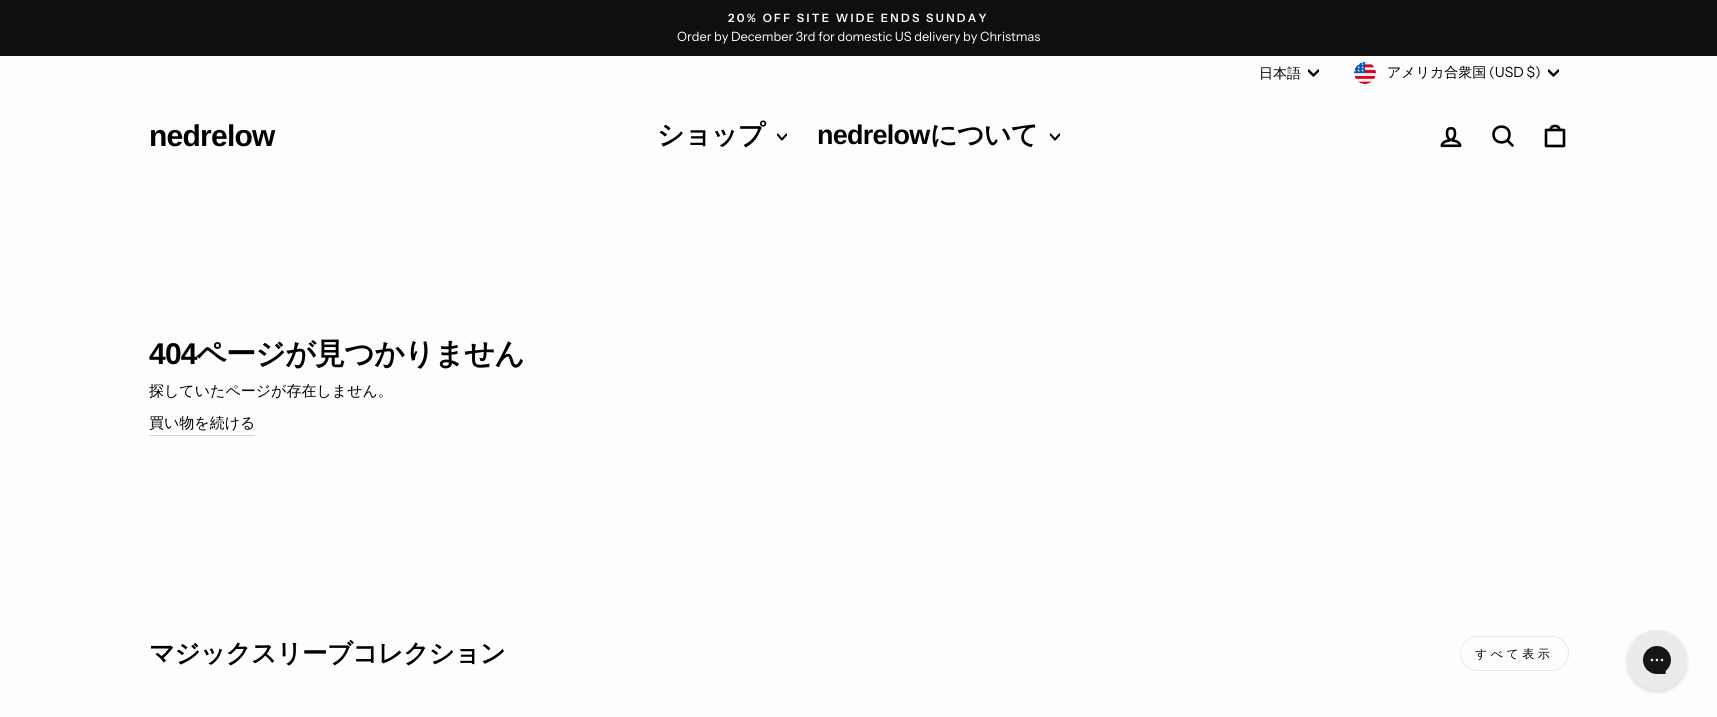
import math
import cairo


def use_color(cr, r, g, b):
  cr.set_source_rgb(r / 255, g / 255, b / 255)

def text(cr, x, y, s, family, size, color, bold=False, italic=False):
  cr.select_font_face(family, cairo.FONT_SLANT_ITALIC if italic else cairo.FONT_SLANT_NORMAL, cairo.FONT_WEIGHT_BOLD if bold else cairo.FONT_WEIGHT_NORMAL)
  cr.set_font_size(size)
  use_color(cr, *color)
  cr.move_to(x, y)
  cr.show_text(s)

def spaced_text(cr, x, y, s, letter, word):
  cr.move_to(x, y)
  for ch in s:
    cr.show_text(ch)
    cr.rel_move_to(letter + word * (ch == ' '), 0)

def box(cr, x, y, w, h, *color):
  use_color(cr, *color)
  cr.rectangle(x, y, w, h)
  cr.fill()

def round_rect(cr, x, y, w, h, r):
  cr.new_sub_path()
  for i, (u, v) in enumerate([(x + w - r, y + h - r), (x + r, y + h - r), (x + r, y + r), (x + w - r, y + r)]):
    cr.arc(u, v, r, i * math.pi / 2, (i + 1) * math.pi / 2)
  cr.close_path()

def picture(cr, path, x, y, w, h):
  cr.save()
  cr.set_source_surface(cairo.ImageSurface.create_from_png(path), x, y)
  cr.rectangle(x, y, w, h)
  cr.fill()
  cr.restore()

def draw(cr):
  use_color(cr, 253, 253, 253)
  cr.paint()
  box(cr, 0, 0, 1717, 56, 15, 15, 15)
  cr.save()
  cr.rectangle(1308, 68, 11, 11)
  cr.clip()
  cr.new_path()
  cr.move_to(1308.5, 70.5)
  cr.line_to(1313.5, 75.5)
  cr.line_to(1318.5, 70.5)
  use_color(cr, 0, 0, 0)
  cr.set_line_width(2.4)
  cr.set_line_cap(cairo.LINE_CAP_ROUND)
  cr.set_line_join(cairo.LINE_JOIN_ROUND)
  cr.stroke()
  cr.restore()
  picture(cr, "img_01.png", 1354, 62, 22, 22)
  cr.save()
  cr.rectangle(1548, 68, 11, 11)
  cr.clip()
  cr.new_path()
  cr.move_to(1548.5, 70.5)
  cr.line_to(1553.5, 75.5)
  cr.line_to(1558.5, 70.5)
  use_color(cr, 0, 0, 0)
  cr.set_line_width(2.4)
  cr.set_line_cap(cairo.LINE_CAP_ROUND)
  cr.set_line_join(cairo.LINE_JOIN_ROUND)
  cr.stroke()
  cr.restore()
  cr.save()
  cr.rectangle(777, 132, 10, 10)
  cr.clip()
  cr.new_path()
  cr.move_to(777.5, 134.5)
  cr.line_to(782, 139.5)
  cr.line_to(786.5, 134.5)
  use_color(cr, 0, 0, 0)
  cr.set_line_width(2.1)
  cr.set_line_cap(cairo.LINE_CAP_ROUND)
  cr.set_line_join(cairo.LINE_JOIN_ROUND)
  cr.stroke()
  cr.restore()
  cr.save()
  cr.rectangle(1050, 132, 10, 10)
  cr.clip()
  cr.new_path()
  cr.move_to(1050.5, 134.5)
  cr.line_to(1055, 139.5)
  cr.line_to(1059.5, 134.5)
  use_color(cr, 0, 0, 0)
  cr.set_line_width(2.1)
  cr.set_line_cap(cairo.LINE_CAP_ROUND)
  cr.set_line_join(cairo.LINE_JOIN_ROUND)
  cr.stroke()
  cr.restore()
  picture(cr, "img_02.png", 1440, 127, 22, 21)
  cr.new_path()
  cr.move_to(1509.5, 134.5)
  cr.curve_to(1509.5, 145, 1493.5, 145, 1493.5, 134.5)
  cr.curve_to(1493.5, 124, 1509.5, 124, 1509.5, 134.5)
  cr.close_path()
  cr.move_to(1512.5, 145.5)
  cr.line_to(1507.5, 140.5)
  use_color(cr, 0, 0, 0)
  cr.set_line_width(2.6)
  cr.set_line_cap(cairo.LINE_CAP_ROUND)
  cr.set_line_join(cairo.LINE_JOIN_ROUND)
  cr.stroke()
  cr.new_path()
  cr.move_to(1546, 130)
  cr.line_to(1564, 130)
  cr.line_to(1564, 146)
  cr.line_to(1546, 146)
  cr.close_path()
  cr.move_to(1550.5, 130)
  cr.curve_to(1550.5, 124.5, 1559.5, 124.5, 1559.5, 130)
  cr.stroke()
  box(cr, 149, 435, 106, 1, 215, 215, 215)
  round_rect(cr, 1460.5, 636.5, 108, 34, 17)
  use_color(cr, 232, 232, 225)
  cr.set_line_width(1)
  cr.set_line_cap(cairo.LINE_CAP_BUTT)
  cr.set_line_join(cairo.LINE_JOIN_MITER)
  cr.stroke()
  picture(cr, "img_03.png", 1625, 630, 64, 64)
  cr.select_font_face("Instrument Sans SemiBold")
  cr.set_font_size(11.5)
  use_color(cr, 255, 255, 255)
  spaced_text(cr, 728, 22, "20% OFF SITE WIDE ENDS SUNDAY", 2.3, 0)
  text(cr, 677, 41, "Order by December 3rd for domestic US delivery by Christmas", "Instrument Sans", 12.75, (255, 255, 255))
  text(cr, 1259, 78, "日本語", "WenQuanYi Zen Hei Medium", 14, (0, 0, 0))
  text(cr, 1387, 77, "アメリカ合衆国", "WenQuanYi Zen Hei Medium", 14, (0, 0, 0))
  text(cr, 1489, 77, "(USD $)", "Instrument Sans", 14, (0, 0, 0))
  cr.select_font_face("Liberation Sans", cairo.FONT_SLANT_NORMAL, cairo.FONT_WEIGHT_BOLD)
  cr.set_font_size(30)
  spaced_text(cr, 149, 146, "nedrelow", -0.75, 0)
  cr.select_font_face("WenQuanYi Zen Hei", cairo.FONT_SLANT_NORMAL, cairo.FONT_WEIGHT_BOLD)
  cr.set_font_size(27)
  spaced_text(cr, 657, 144, "ショップ", -0.75, 0)
  cr.select_font_face("Liberation Sans", cairo.FONT_SLANT_NORMAL, cairo.FONT_WEIGHT_BOLD)
  spaced_text(cr, 817, 144, "nedrelow", -0.75, 0)
  cr.select_font_face("WenQuanYi Zen Hei", cairo.FONT_SLANT_NORMAL, cairo.FONT_WEIGHT_BOLD)
  spaced_text(cr, 930, 144, "について", -0.75, 0)
  cr.select_font_face("Liberation Sans", cairo.FONT_SLANT_NORMAL, cairo.FONT_WEIGHT_BOLD)
  cr.set_font_size(30)
  spaced_text(cr, 149, 364, "404", -0.75, 0)
  cr.select_font_face("WenQuanYi Zen Hei", cairo.FONT_SLANT_NORMAL, cairo.FONT_WEIGHT_BOLD)
  spaced_text(cr, 196, 364, "ページが見つかりません", -0.75, 0)
  text(cr, 149, 396, "探していたページが存在しません。", "WenQuanYi Zen Hei Medium", 15, (0, 0, 0))
  text(cr, 149, 428, "買い物を続ける", "WenQuanYi Zen Hei Medium", 15, (0, 0, 0))
  cr.select_font_face("WenQuanYi Zen Hei", cairo.FONT_SLANT_NORMAL, cairo.FONT_WEIGHT_BOLD)
  cr.set_font_size(25.5)
  spaced_text(cr, 149, 662, "マジックスリーブコレクション", -0.6, 0)
  cr.select_font_face("WenQuanYi Zen Hei Medium")
  cr.set_font_size(12)
  spaced_text(cr, 1475, 658, "すべて表示", 3.5, 0)


surface = cairo.ImageSurface(cairo.FORMAT_RGB24, 1717, 717)
cr = cairo.Context(surface)
options = cairo.FontOptions()
options.set_hint_metrics(cairo.HINT_METRICS_OFF)
options.set_hint_style(cairo.HINT_STYLE_NONE)
cr.set_font_options(options)
cr.set_miter_limit(4)
draw(cr)
surface.write_to_png("out.png")
